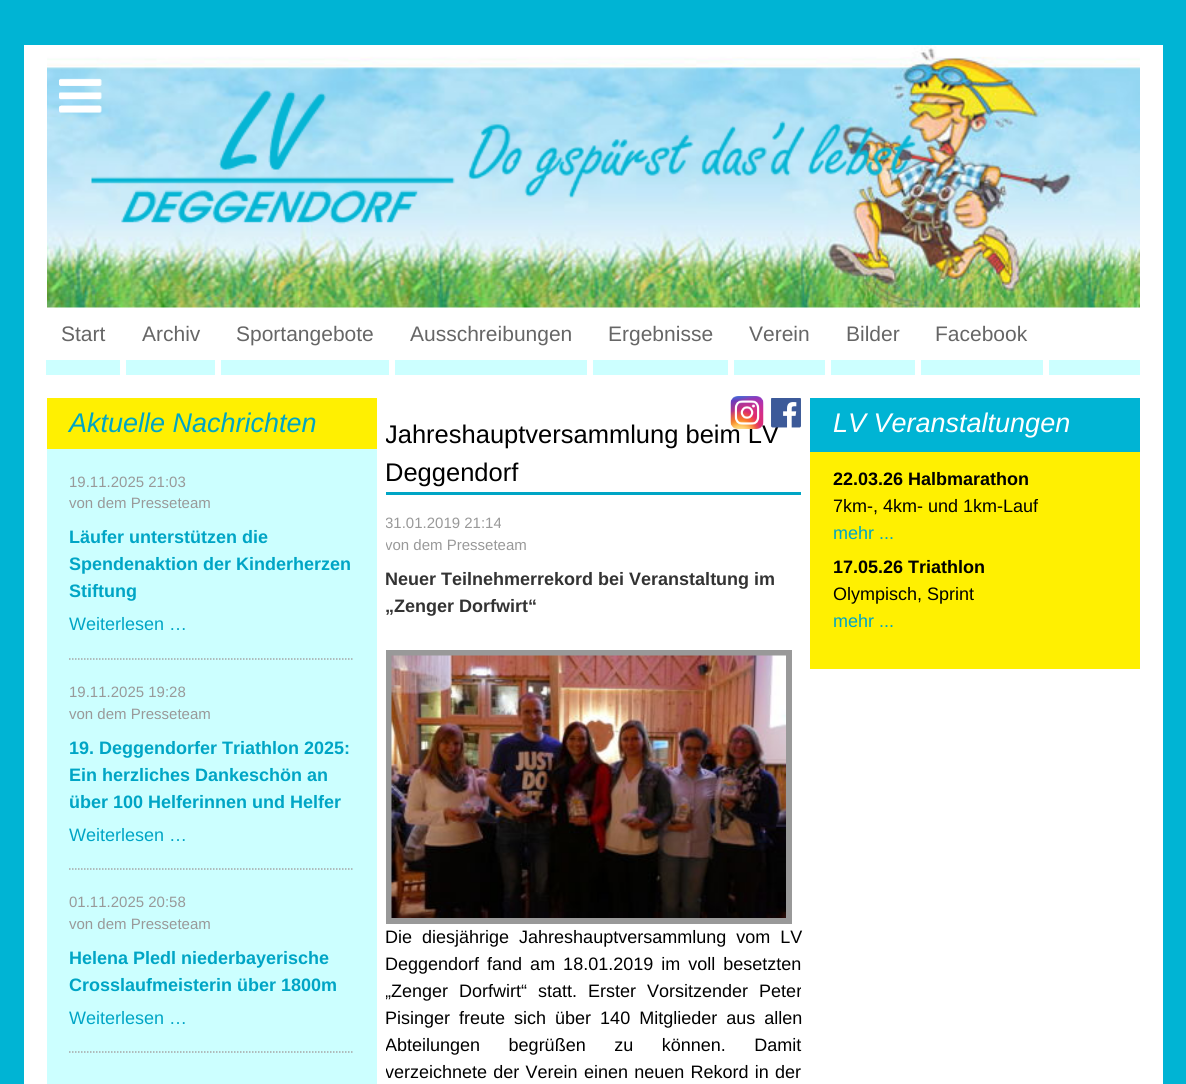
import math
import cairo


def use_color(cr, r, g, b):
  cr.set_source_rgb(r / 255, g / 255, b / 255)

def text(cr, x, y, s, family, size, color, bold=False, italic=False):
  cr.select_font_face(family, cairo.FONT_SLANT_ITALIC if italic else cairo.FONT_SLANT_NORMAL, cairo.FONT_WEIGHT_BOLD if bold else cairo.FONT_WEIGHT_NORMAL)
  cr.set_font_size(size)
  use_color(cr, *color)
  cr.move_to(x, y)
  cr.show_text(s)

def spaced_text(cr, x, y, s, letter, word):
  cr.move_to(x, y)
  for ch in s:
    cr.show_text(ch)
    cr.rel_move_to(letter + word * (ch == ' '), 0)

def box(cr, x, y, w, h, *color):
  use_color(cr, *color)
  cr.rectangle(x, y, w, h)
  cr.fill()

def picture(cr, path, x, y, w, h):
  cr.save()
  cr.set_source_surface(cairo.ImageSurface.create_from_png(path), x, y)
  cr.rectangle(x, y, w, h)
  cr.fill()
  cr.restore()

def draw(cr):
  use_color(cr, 0, 180, 212)
  cr.paint()
  box(cr, 24, 45, 1139, 1039, 255, 255, 255)
  picture(cr, "img_01.png", 47, 45, 1093, 263)
  picture(cr, "img_02.png", 59, 78, 43, 35)
  picture(cr, "img_03.png", 91, 90, 364, 134)
  picture(cr, "img_04.png", 467, 121, 449, 77)
  box(cr, 46, 360, 1094, 15, 204, 255, 255)
  box(cr, 120, 360, 6, 15, 255, 255, 255)
  box(cr, 215, 360, 6, 15, 255, 255, 255)
  box(cr, 389, 360, 6, 15, 255, 255, 255)
  box(cr, 587, 360, 6, 15, 255, 255, 255)
  box(cr, 728, 360, 6, 15, 255, 255, 255)
  box(cr, 825, 360, 6, 15, 255, 255, 255)
  box(cr, 915, 360, 6, 15, 255, 255, 255)
  box(cr, 1043, 360, 6, 15, 255, 255, 255)
  box(cr, 47, 449, 330, 635, 204, 255, 255)
  box(cr, 47, 398, 330, 51, 255, 240, 1)
  cr.new_path()
  cr.move_to(69, 659)
  cr.line_to(354, 659)
  use_color(cr, 166, 166, 166)
  cr.set_line_width(1.5)
  cr.set_dash([1.5, 1.5])
  cr.stroke()
  cr.new_path()
  cr.move_to(69, 869)
  cr.line_to(354, 869)
  cr.stroke()
  cr.new_path()
  cr.move_to(69, 1052)
  cr.line_to(354, 1052)
  cr.stroke()
  box(cr, 386, 492, 415, 3, 0, 165, 197)
  cr.rectangle(389, 653, 400, 268)
  use_color(cr, 153, 153, 153)
  cr.set_line_width(6)
  cr.set_dash([])
  cr.stroke()
  picture(cr, "img_07.png", 391, 655, 395, 263)
  box(cr, 810, 452, 330, 217, 255, 240, 1)
  box(cr, 810, 398, 330, 54, 0, 180, 212)
  text(cr, 61, 341, "Start", "Liberation Sans", 21, (102, 102, 102))
  text(cr, 142, 341, "Archiv", "Liberation Sans", 21, (102, 102, 102))
  text(cr, 236, 341, "Sportangebote", "Liberation Sans", 21, (102, 102, 102))
  text(cr, 410, 341, "Ausschreibungen", "Liberation Sans", 21, (102, 102, 102))
  text(cr, 608, 341, "Ergebnisse", "Liberation Sans", 21, (102, 102, 102))
  text(cr, 749, 341, "Verein", "Liberation Sans", 21, (102, 102, 102))
  text(cr, 846, 341, "Bilder", "Liberation Sans", 21, (102, 102, 102))
  text(cr, 935, 341, "Facebook", "Liberation Sans", 21, (102, 102, 102))
  text(cr, 69, 432, "Aktuelle Nachrichten", "Liberation Sans", 27, (0, 165, 197), italic=True)
  text(cr, 69, 487, "19.11.2025 21:03", "Liberation Sans", 15, (153, 153, 153))
  text(cr, 69, 508, "von dem Presseteam", "Liberation Sans", 15, (153, 153, 153))
  text(cr, 69, 543, "Läufer unterstützen die", "Liberation Sans", 18, (0, 165, 197), bold=True)
  text(cr, 69, 570, "Spendenaktion der Kinderherzen", "Liberation Sans", 18, (0, 165, 197), bold=True)
  text(cr, 69, 597, "Stiftung", "Liberation Sans", 18, (0, 165, 197), bold=True)
  text(cr, 69, 630, "Weiterlesen …", "Liberation Sans", 18, (0, 165, 197))
  text(cr, 69, 697, "19.11.2025 19:28", "Liberation Sans", 15, (153, 153, 153))
  text(cr, 69, 719, "von dem Presseteam", "Liberation Sans", 15, (153, 153, 153))
  text(cr, 69, 754, "19. Deggendorfer Triathlon 2025:", "Liberation Sans", 18, (0, 165, 197), bold=True)
  text(cr, 69, 781, "Ein herzliches Dankeschön an", "Liberation Sans", 18, (0, 165, 197), bold=True)
  text(cr, 69, 808, "über 100 Helferinnen und Helfer", "Liberation Sans", 18, (0, 165, 197), bold=True)
  text(cr, 69, 841, "Weiterlesen …", "Liberation Sans", 18, (0, 165, 197))
  text(cr, 69, 907, "01.11.2025 20:58", "Liberation Sans", 15, (153, 153, 153))
  text(cr, 69, 929, "von dem Presseteam", "Liberation Sans", 15, (153, 153, 153))
  text(cr, 69, 964, "Helena Pledl niederbayerische", "Liberation Sans", 18, (0, 165, 197), bold=True)
  text(cr, 69, 991, "Crosslaufmeisterin über 1800m", "Liberation Sans", 18, (0, 165, 197), bold=True)
  text(cr, 69, 1024, "Weiterlesen …", "Liberation Sans", 18, (0, 165, 197))
  cr.save()
  cr.rectangle(386, 393, 415, 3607)
  cr.clip()
  text(cr, 385, 443, "Jahreshauptversammlung beim LV", "Liberation Sans", 25.5, (0, 0, 0))
  cr.restore()
  picture(cr, "img_05.png", 730, 396, 34, 33)
  picture(cr, "img_06.png", 771, 398, 30, 30)
  text(cr, 385, 481, "Deggendorf", "Liberation Sans", 25.5, (0, 0, 0))
  cr.save()
  cr.rectangle(386, 393, 415, 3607)
  cr.clip()
  text(cr, 385, 528, "31.01.2019 21:14", "Liberation Sans", 15, (153, 153, 153))
  text(cr, 385, 550, "von dem Presseteam", "Liberation Sans", 15, (153, 153, 153))
  cr.restore()
  text(cr, 385, 585, "Neuer Teilnehmerrekord bei Veranstaltung im", "Liberation Sans", 18, (51, 51, 51), bold=True)
  text(cr, 385, 612, "„Zenger Dorfwirt“", "Liberation Sans", 18, (51, 51, 51), bold=True)
  cr.select_font_face("Liberation Sans")
  use_color(cr, 0, 0, 0)
  spaced_text(cr, 385, 943, "Die diesjährige Jahreshauptversammlung vom LV", 0, 5)
  spaced_text(cr, 385, 970, "Deggendorf fand am 18.01.2019 im voll besetzten", 0, 3)
  cr.save()
  cr.rectangle(386, 644, 415, 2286)
  cr.clip()
  spaced_text(cr, 385, 997, "„Zenger Dorfwirt“ statt. Erster Vorsitzender Peter", 0, 6)
  cr.restore()
  spaced_text(cr, 385, 1024, "Pisinger freute sich über 140 Mitglieder aus allen", 0, 4)
  cr.save()
  cr.rectangle(386, 644, 415, 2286)
  cr.clip()
  spaced_text(cr, 385, 1051, "Abteilungen begrüßen zu können. Damit", 0, 23.5)
  spaced_text(cr, 385, 1078, "verzeichnete der Verein einen neuen Rekord in der", 0, 1.25)
  cr.restore()
  text(cr, 833, 432, "LV Veranstaltungen", "Liberation Sans", 27, (255, 255, 255), italic=True)
  text(cr, 833, 485, "22.03.26 Halbmarathon", "Liberation Sans", 18, (0, 0, 0), bold=True)
  text(cr, 833, 512, "7km-, 4km- und 1km-Lauf", "Liberation Sans", 18, (0, 0, 0))
  text(cr, 833, 539, "mehr ...", "Liberation Sans", 18, (0, 165, 197))
  text(cr, 833, 573, "17.05.26 Triathlon", "Liberation Sans", 18, (0, 0, 0), bold=True)
  text(cr, 833, 600, "Olympisch, Sprint", "Liberation Sans", 18, (0, 0, 0))
  text(cr, 833, 627, "mehr ...", "Liberation Sans", 18, (0, 165, 197))


surface = cairo.ImageSurface(cairo.FORMAT_RGB24, 1186, 1084)
cr = cairo.Context(surface)
options = cairo.FontOptions()
options.set_hint_metrics(cairo.HINT_METRICS_OFF)
options.set_hint_style(cairo.HINT_STYLE_NONE)
cr.set_font_options(options)
cr.set_miter_limit(4)
draw(cr)
surface.write_to_png("out.png")
